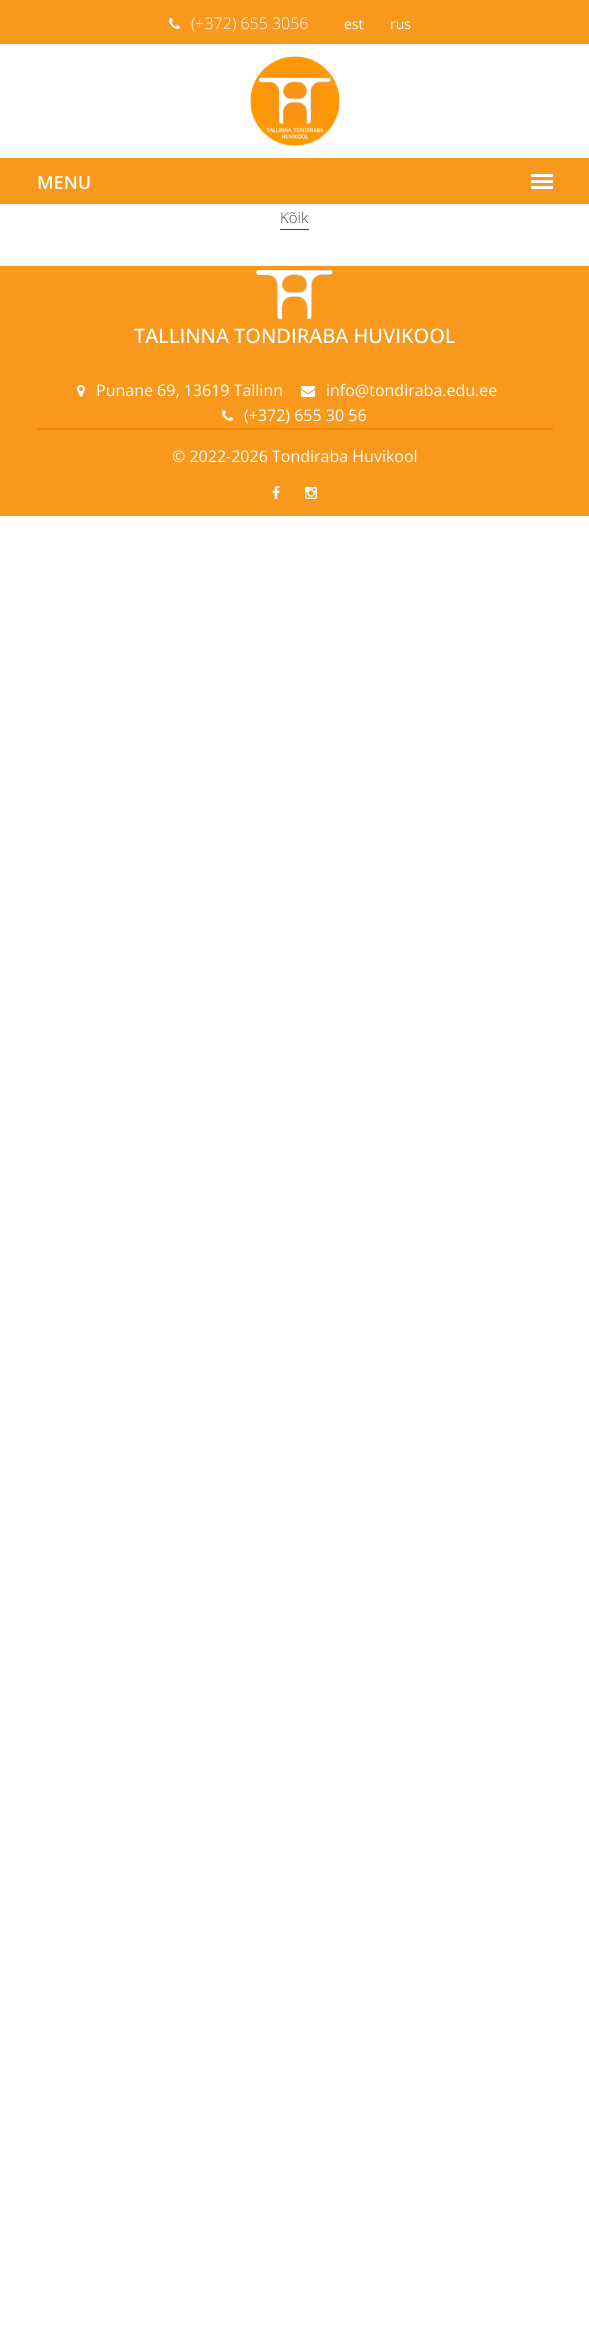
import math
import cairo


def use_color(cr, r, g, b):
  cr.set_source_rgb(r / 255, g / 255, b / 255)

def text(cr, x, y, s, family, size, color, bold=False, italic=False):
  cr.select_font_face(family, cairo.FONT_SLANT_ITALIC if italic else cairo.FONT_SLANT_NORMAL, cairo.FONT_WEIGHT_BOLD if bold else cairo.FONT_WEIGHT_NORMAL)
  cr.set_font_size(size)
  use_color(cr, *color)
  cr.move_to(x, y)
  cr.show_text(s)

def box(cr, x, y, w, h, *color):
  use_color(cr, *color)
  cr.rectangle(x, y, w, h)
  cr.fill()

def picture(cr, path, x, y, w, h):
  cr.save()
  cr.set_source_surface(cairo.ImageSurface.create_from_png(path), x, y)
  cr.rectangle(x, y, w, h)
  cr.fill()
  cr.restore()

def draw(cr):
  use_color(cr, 255, 255, 255)
  cr.paint()
  box(cr, 0, 0, 589, 44, 248, 152, 29)
  picture(cr, "img_01.png", 169, 18, 11, 11)
  picture(cr, "img_02.png", 250, 56, 90, 90)
  box(cr, 0, 158, 589, 46, 248, 152, 29)
  box(cr, 531, 174, 22, 3, 255, 255, 255)
  box(cr, 531, 180, 22, 3, 255, 255, 255)
  box(cr, 531, 186, 22, 3, 255, 255, 255)
  box(cr, 0, 265, 589, 1, 240, 240, 240)
  box(cr, 280, 229, 29, 1, 68, 68, 68)
  box(cr, 0, 266, 589, 250, 248, 152, 29)
  box(cr, 37, 428, 516, 2, 241, 135, 0)
  picture(cr, "img_03.png", 256, 270, 77, 50)
  picture(cr, "img_04.png", 77, 385, 8, 12)
  picture(cr, "img_05.png", 301, 386, 14, 11)
  picture(cr, "img_01.png", 222, 410, 11, 11)
  picture(cr, "img_06.png", 272, 486, 8, 13)
  picture(cr, "img_07.png", 305, 487, 12, 12)
  text(cr, 191, 29, "(+372) 655 3056", "Open Sans Light", 16, (255, 255, 255))
  text(cr, 344, 29, "est", "Open Sans", 14, (255, 255, 255))
  text(cr, 390, 29, "rus", "Open Sans", 14, (255, 255, 255))
  text(cr, 37, 189, "MENU", "Open Sans SemiBold", 18, (255, 255, 255))
  text(cr, 280, 223, "Kõik", "Open Sans Light", 15, (68, 68, 68))
  text(cr, 134, 343, "TALLINNA TONDIRABA HUVIKOOL", "Open Sans Medium", 20, (255, 255, 255))
  text(cr, 96, 396, "Punane 69, 13619 Tallinn", "Open Sans", 16, (255, 255, 255))
  text(cr, 326, 396, "info@tondiraba.edu.ee", "Open Sans", 16, (255, 255, 255))
  text(cr, 244, 421, "(+372) 655 30 56", "Open Sans", 16, (255, 255, 255))
  text(cr, 172, 462, "© 2022-2026 Tondiraba Huvikool", "Open Sans", 16, (255, 255, 255))


surface = cairo.ImageSurface(cairo.FORMAT_RGB24, 589, 2339)
cr = cairo.Context(surface)
options = cairo.FontOptions()
options.set_hint_metrics(cairo.HINT_METRICS_OFF)
options.set_hint_style(cairo.HINT_STYLE_NONE)
cr.set_font_options(options)
cr.set_miter_limit(4)
draw(cr)
surface.write_to_png("out.png")
